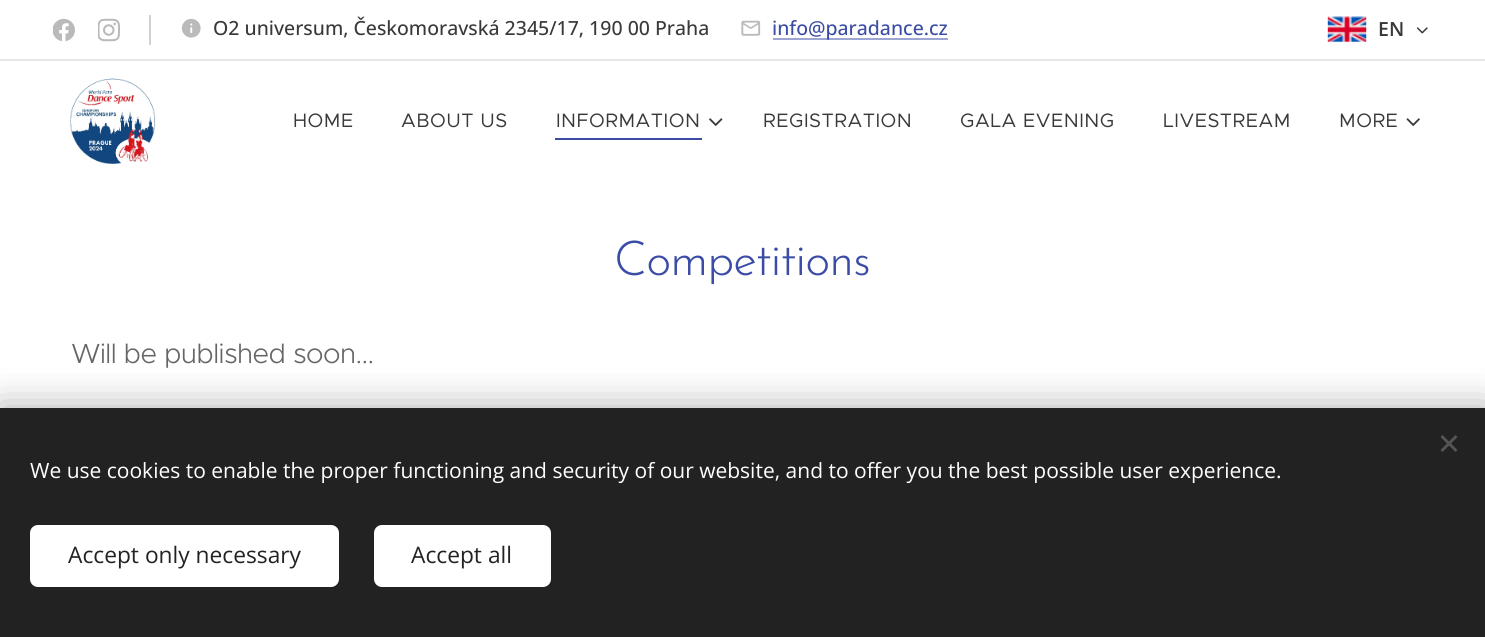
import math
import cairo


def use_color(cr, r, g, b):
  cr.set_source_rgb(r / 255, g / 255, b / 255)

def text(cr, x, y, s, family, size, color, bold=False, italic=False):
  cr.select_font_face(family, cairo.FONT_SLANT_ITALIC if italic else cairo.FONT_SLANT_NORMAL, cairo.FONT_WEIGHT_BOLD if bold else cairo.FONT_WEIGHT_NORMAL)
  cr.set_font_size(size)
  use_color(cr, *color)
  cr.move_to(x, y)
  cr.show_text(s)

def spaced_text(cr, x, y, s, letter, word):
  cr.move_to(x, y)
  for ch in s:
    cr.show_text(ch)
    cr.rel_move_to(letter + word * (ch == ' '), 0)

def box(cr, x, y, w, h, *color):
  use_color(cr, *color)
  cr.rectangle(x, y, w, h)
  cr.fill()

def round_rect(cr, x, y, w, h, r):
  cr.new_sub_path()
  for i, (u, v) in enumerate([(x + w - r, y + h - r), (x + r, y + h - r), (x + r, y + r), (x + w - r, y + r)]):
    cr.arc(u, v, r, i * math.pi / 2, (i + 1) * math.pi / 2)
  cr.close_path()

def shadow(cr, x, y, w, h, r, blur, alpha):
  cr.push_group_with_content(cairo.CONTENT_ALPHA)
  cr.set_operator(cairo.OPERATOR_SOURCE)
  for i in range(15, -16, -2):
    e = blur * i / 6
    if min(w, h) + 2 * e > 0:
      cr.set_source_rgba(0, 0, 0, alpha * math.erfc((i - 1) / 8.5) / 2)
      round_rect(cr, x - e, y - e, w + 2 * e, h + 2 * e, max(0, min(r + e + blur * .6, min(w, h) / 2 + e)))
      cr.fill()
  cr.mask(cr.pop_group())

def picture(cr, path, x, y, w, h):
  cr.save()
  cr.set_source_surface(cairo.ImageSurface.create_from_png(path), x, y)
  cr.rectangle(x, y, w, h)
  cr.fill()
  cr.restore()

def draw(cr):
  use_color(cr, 255, 255, 255)
  cr.paint()
  picture(cr, "img_01.png", 53, 18, 22, 24)
  picture(cr, "img_02.png", 98, 18, 22, 24)
  box(cr, 149, 15, 2, 30, 209, 209, 209)
  picture(cr, "img_03.png", 181, 18, 20, 20)
  picture(cr, "img_04.png", 741, 20, 20, 16)
  box(cr, 773, 38, 175, 2, 157, 166, 210)
  picture(cr, "img_05.png", 1327, 16, 40, 26)
  picture(cr, "img_06.png", 1416, 27, 12, 7)
  box(cr, 0, 59, 1485, 2, 232, 232, 232)
  picture(cr, "img_07.png", 70, 78, 86, 86)
  box(cr, 555, 138, 147, 2, 58, 76, 165)
  picture(cr, "img_08.png", 709, 118, 14, 8)
  picture(cr, "img_09.png", 1406, 118, 14, 8)
  use_color(cr, 0, 0, 0)
  shadow(cr, 0, 408, 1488, 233, 0, 19, 0.33)
  box(cr, 0, 408, 1485, 229, 34, 34, 34)
  use_color(cr, 85, 85, 85)
  cr.new_path()
  cr.move_to(1440.5, 450)
  cr.line_to(1455.5, 435)
  cr.line_to(1457.5, 437)
  cr.line_to(1442.5, 452)
  cr.close_path()
  cr.fill()
  cr.new_path()
  cr.move_to(1442.5, 435)
  cr.line_to(1457.5, 450)
  cr.line_to(1455.5, 452)
  cr.line_to(1440.5, 437)
  cr.close_path()
  cr.fill()
  use_color(cr, 255, 255, 255)
  round_rect(cr, 30, 525, 309, 62, 8)
  cr.fill()
  round_rect(cr, 374, 525, 177, 62, 8)
  cr.fill()
  text(cr, 213, 35, "O2 universum, Českomoravská 2345/17, 190 00 Praha", "Open Sans Medium", 19.5, (57, 57, 57))
  text(cr, 772, 35, "info@paradance.cz", "Open Sans Medium", 19.5, (58, 76, 165))
  text(cr, 1378, 36, "EN", "Open Sans SemiBold", 19.5, (57, 57, 57))
  cr.select_font_face("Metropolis")
  spaced_text(cr, 293, 127, "HOME", 0.5, 0)
  spaced_text(cr, 401, 127, "ABOUT US", 0.5, 0)
  spaced_text(cr, 556, 127, "INFORMATION", 0.5, 0)
  spaced_text(cr, 763, 127, "REGISTRATION", 0.5, 0)
  spaced_text(cr, 960, 127, "GALA EVENING", 0.5, 0)
  spaced_text(cr, 1163, 127, "LIVESTREAM", 0.5, 0)
  spaced_text(cr, 1339, 127, "MORE", 0.5, 0)
  cr.select_font_face("Josefin Sans Light")
  cr.set_font_size(48)
  use_color(cr, 58, 76, 165)
  spaced_text(cr, 614, 275, "Competitions", -1, 0)
  cr.select_font_face("Metropolis Light")
  cr.set_font_size(27.75)
  use_color(cr, 102, 102, 102)
  spaced_text(cr, 71, 363, "Will be published soon...", -0.55, 0)
  text(cr, 30, 478, "We use cookies to enable the proper functioning and security of our website, and to offer you the best possible user experience.", "Open Sans", 21, (255, 255, 255))
  text(cr, 68, 563, "Accept only necessary", "Open Sans", 22.75, (34, 34, 34))
  text(cr, 411, 563, "Accept all", "Open Sans", 22.75, (34, 34, 34))


surface = cairo.ImageSurface(cairo.FORMAT_RGB24, 1485, 637)
cr = cairo.Context(surface)
options = cairo.FontOptions()
options.set_hint_metrics(cairo.HINT_METRICS_OFF)
options.set_hint_style(cairo.HINT_STYLE_NONE)
cr.set_font_options(options)
cr.set_miter_limit(4)
draw(cr)
surface.write_to_png("out.png")
